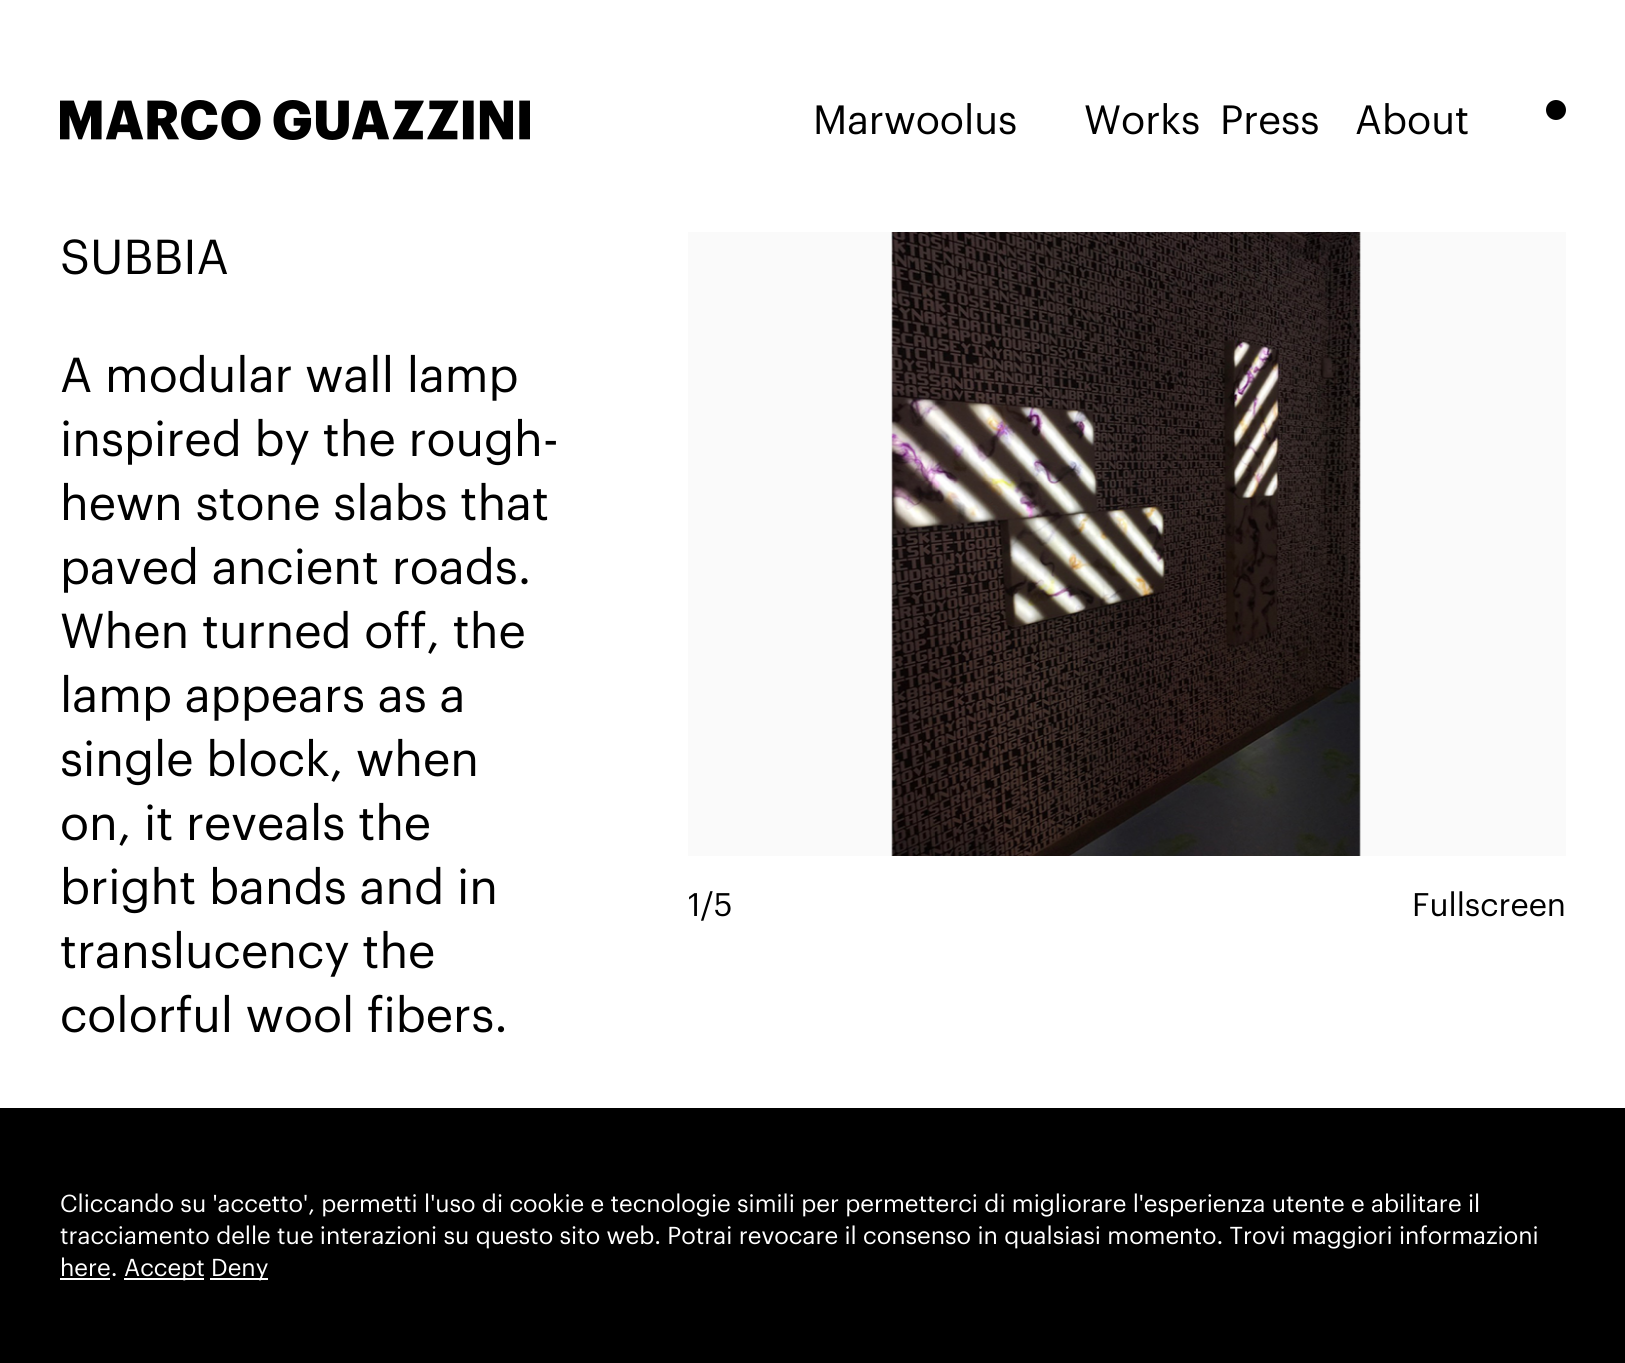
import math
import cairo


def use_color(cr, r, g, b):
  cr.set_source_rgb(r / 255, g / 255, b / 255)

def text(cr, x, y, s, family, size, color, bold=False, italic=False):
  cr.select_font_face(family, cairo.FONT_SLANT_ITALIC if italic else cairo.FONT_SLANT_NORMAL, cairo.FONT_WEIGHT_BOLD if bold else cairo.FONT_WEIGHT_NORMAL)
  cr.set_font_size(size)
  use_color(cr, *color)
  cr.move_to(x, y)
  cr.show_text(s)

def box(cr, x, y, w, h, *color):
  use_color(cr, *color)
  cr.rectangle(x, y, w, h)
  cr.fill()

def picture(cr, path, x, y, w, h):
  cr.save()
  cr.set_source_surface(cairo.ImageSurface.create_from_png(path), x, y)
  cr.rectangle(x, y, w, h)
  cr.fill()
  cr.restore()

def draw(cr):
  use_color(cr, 255, 255, 255)
  cr.paint()
  picture(cr, "img_01.png", 60, 100, 470, 40)
  use_color(cr, 0, 0, 0)
  cr.arc(1556, 110, 9, 0, 2 * math.pi)
  cr.fill_preserve()
  cr.stroke()
  box(cr, 688, 232, 878, 624, 250, 250, 250)
  picture(cr, "img_02.png", 891, 232, 470, 624)
  box(cr, 0, 1108, 1625, 255, 0, 0, 0)
  box(cr, 60, 1278, 50, 2, 255, 255, 255)
  box(cr, 124, 1278, 80, 2, 255, 255, 255)
  box(cr, 210, 1278, 58, 2, 255, 255, 255)
  text(cr, 813, 134, "Marwoolus", "Graphik", 40, (0, 0, 0), italic=True)
  text(cr, 1084, 134, "Works", "Graphik", 40, (0, 0, 0), italic=True)
  text(cr, 1220, 134, "Press", "Graphik", 40, (0, 0, 0), italic=True)
  text(cr, 1355, 134, "About", "Graphik", 40, (0, 0, 0), italic=True)
  text(cr, 60, 274, "SUBBIA", "Graphik", 48, (0, 0, 0), italic=True)
  text(cr, 60, 392, "A modular wall lamp", "Graphik", 48, (0, 0, 0), italic=True)
  text(cr, 60, 456, "inspired by the rough-", "Graphik", 48, (0, 0, 0), italic=True)
  text(cr, 60, 520, "hewn stone slabs that", "Graphik", 48, (0, 0, 0), italic=True)
  text(cr, 60, 584, "paved ancient roads.", "Graphik", 48, (0, 0, 0), italic=True)
  text(cr, 60, 648, "When turned off, the", "Graphik", 48, (0, 0, 0), italic=True)
  text(cr, 60, 712, "lamp appears as a", "Graphik", 48, (0, 0, 0), italic=True)
  text(cr, 60, 776, "single block, when", "Graphik", 48, (0, 0, 0), italic=True)
  text(cr, 60, 840, "on, it reveals the", "Graphik", 48, (0, 0, 0), italic=True)
  text(cr, 60, 904, "bright bands and in", "Graphik", 48, (0, 0, 0), italic=True)
  text(cr, 60, 968, "translucency the", "Graphik", 48, (0, 0, 0), italic=True)
  text(cr, 60, 1032, "colorful wool fibers.", "Graphik", 48, (0, 0, 0), italic=True)
  text(cr, 688, 916, "1/5", "Graphik", 32, (0, 0, 0), italic=True)
  text(cr, 1412, 916, "Fullscreen", "Graphik", 32, (0, 0, 0), italic=True)
  text(cr, 60, 1212, "Cliccando su 'accetto', permetti l'uso di cookie e tecnologie simili per permetterci di migliorare l'esperienza utente e abilitare il", "Graphik", 24, (255, 255, 255), italic=True)
  text(cr, 60, 1244, "tracciamento delle tue interazioni su questo sito web. Potrai revocare il consenso in qualsiasi momento. Trovi maggiori informazioni", "Graphik", 24, (255, 255, 255), italic=True)
  text(cr, 60, 1276, "here.", "Graphik", 24, (255, 255, 255), italic=True)
  text(cr, 124, 1276, "Accept", "Graphik", 24, (255, 255, 255), italic=True)
  text(cr, 211, 1276, "Deny", "Graphik", 24, (255, 255, 255), italic=True)


surface = cairo.ImageSurface(cairo.FORMAT_RGB24, 1625, 1363)
cr = cairo.Context(surface)
options = cairo.FontOptions()
options.set_hint_metrics(cairo.HINT_METRICS_OFF)
options.set_hint_style(cairo.HINT_STYLE_NONE)
cr.set_font_options(options)
cr.set_miter_limit(4)
draw(cr)
surface.write_to_png("out.png")
